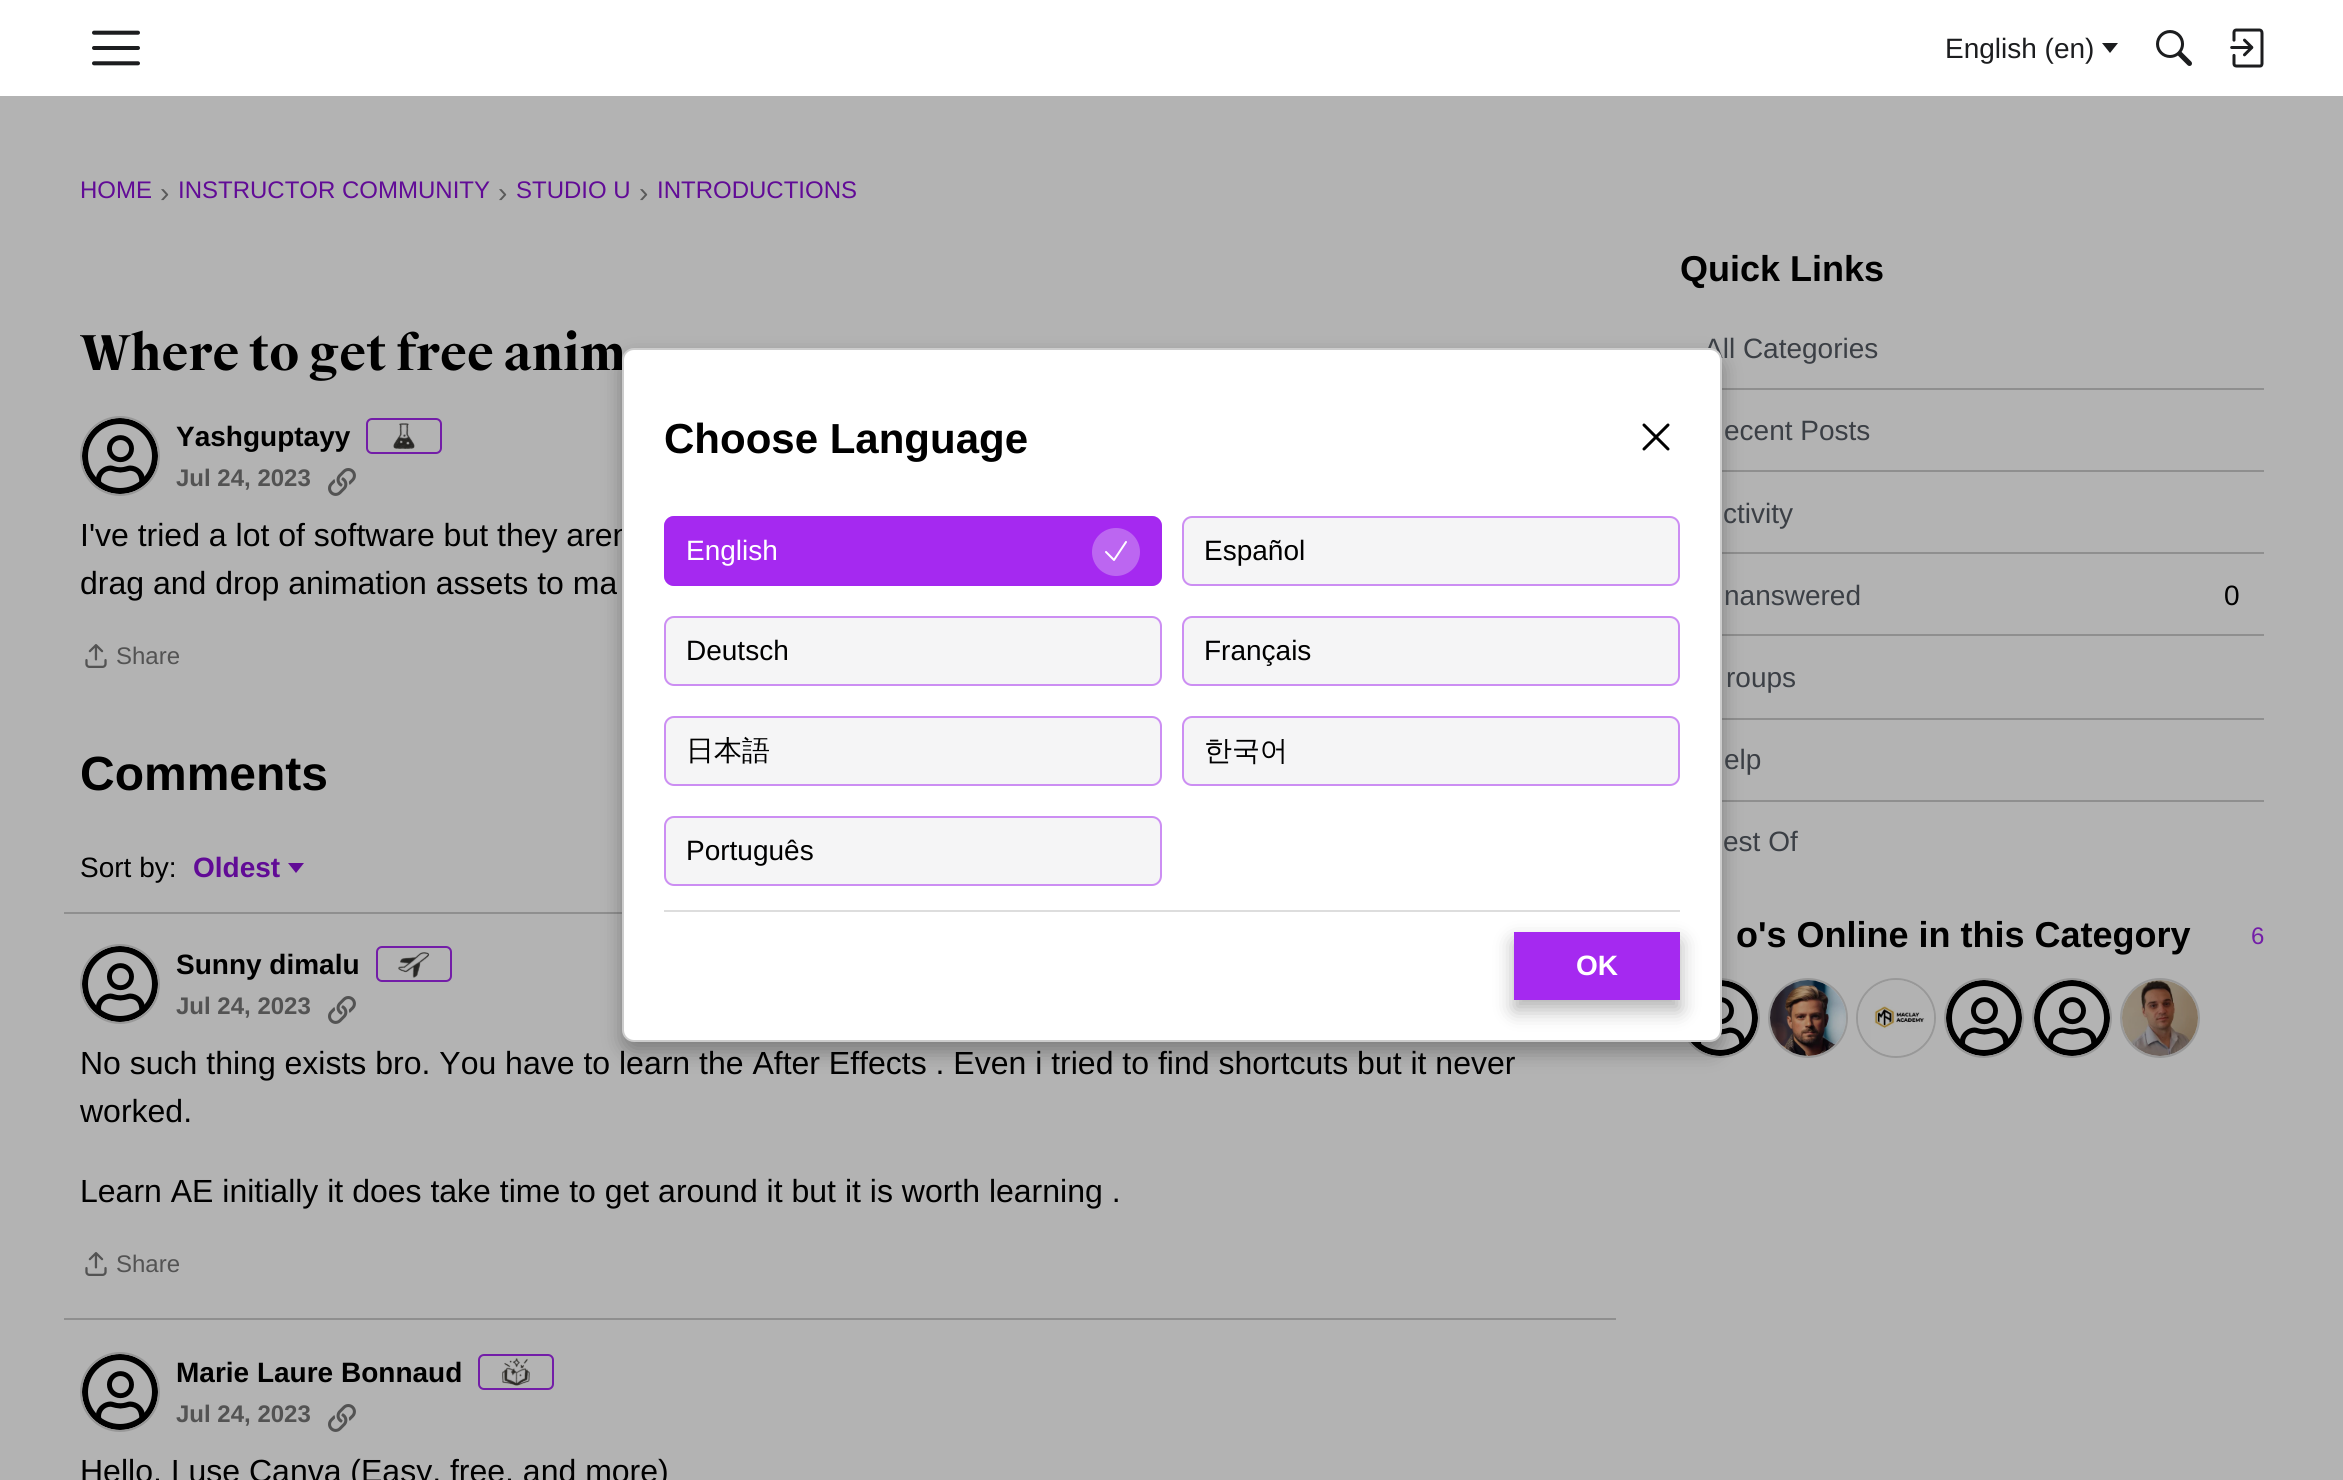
import math
import cairo


def use_color(cr, r, g, b):
  cr.set_source_rgb(r / 255, g / 255, b / 255)

def text(cr, x, y, s, family, size, color, bold=False, italic=False):
  cr.select_font_face(family, cairo.FONT_SLANT_ITALIC if italic else cairo.FONT_SLANT_NORMAL, cairo.FONT_WEIGHT_BOLD if bold else cairo.FONT_WEIGHT_NORMAL)
  cr.set_font_size(size)
  use_color(cr, *color)
  cr.move_to(x, y)
  cr.show_text(s)

def box(cr, x, y, w, h, *color):
  use_color(cr, *color)
  cr.rectangle(x, y, w, h)
  cr.fill()

def round_rect(cr, x, y, w, h, r):
  cr.new_sub_path()
  for i, (u, v) in enumerate([(x + w - r, y + h - r), (x + r, y + h - r), (x + r, y + r), (x + w - r, y + r)]):
    cr.arc(u, v, r, i * math.pi / 2, (i + 1) * math.pi / 2)
  cr.close_path()

def shadow(cr, x, y, w, h, r, blur, alpha):
  cr.push_group_with_content(cairo.CONTENT_ALPHA)
  cr.set_operator(cairo.OPERATOR_SOURCE)
  for i in range(15, -16, -2):
    e = blur * i / 6
    if min(w, h) + 2 * e > 0:
      cr.set_source_rgba(0, 0, 0, alpha * math.erfc((i - 1) / 8.5) / 2)
      round_rect(cr, x - e, y - e, w + 2 * e, h + 2 * e, max(0, min(r + e + blur * .6, min(w, h) / 2 + e)))
      cr.fill()
  cr.mask(cr.pop_group())

def picture(cr, path, x, y, w, h):
  cr.save()
  cr.set_source_surface(cairo.ImageSurface.create_from_png(path), x, y)
  cr.rectangle(x, y, w, h)
  cr.fill()
  cr.restore()

def draw(cr):
  use_color(cr, 179, 179, 179)
  cr.paint()
  box(cr, 0, 0, 2343, 96, 255, 255, 255)
  picture(cr, "img_01.png", 92, 30, 48, 36)
  use_color(cr, 28, 29, 31)
  cr.new_path()
  cr.move_to(2102, 43)
  cr.line_to(2118, 43)
  cr.line_to(2110, 53)
  cr.close_path()
  cr.fill()
  picture(cr, "img_02.png", 2156, 30, 36, 36)
  picture(cr, "img_03.png", 2230, 28, 34, 40)
  cr.arc(120, 456, 39, 0, 2 * math.pi)
  use_color(cr, 152, 152, 152)
  cr.stroke()
  picture(cr, "img_04.png", 82, 418, 76, 76)
  round_rect(cr, 367, 419, 74, 34, 5)
  use_color(cr, 115, 29, 168)
  cr.stroke()
  picture(cr, "img_05.png", 393, 423, 22, 26)
  picture(cr, "img_06.png", 328, 468, 28, 28)
  picture(cr, "img_07.png", 85, 644, 22, 24)
  use_color(cr, 97, 11, 150)
  cr.new_path()
  cr.move_to(288, 863)
  cr.line_to(304, 863)
  cr.line_to(296, 873)
  cr.close_path()
  cr.fill()
  box(cr, 64, 912, 558, 2, 143, 143, 143)
  cr.arc(120, 984, 39, 0, 2 * math.pi)
  use_color(cr, 152, 152, 152)
  cr.stroke()
  picture(cr, "img_04.png", 82, 946, 76, 76)
  round_rect(cr, 377, 947, 74, 34, 5)
  use_color(cr, 115, 29, 168)
  cr.stroke()
  picture(cr, "img_08.png", 398, 952, 32, 26)
  picture(cr, "img_06.png", 328, 996, 28, 28)
  picture(cr, "img_07.png", 85, 1252, 22, 24)
  box(cr, 64, 1318, 1552, 2, 143, 143, 143)
  cr.arc(120, 1392, 39, 0, 2 * math.pi)
  use_color(cr, 152, 152, 152)
  cr.stroke()
  picture(cr, "img_04.png", 82, 1354, 76, 76)
  round_rect(cr, 479, 1355, 74, 34, 5)
  use_color(cr, 115, 29, 168)
  cr.stroke()
  picture(cr, "img_09.png", 502, 1358, 28, 28)
  picture(cr, "img_06.png", 328, 1404, 28, 28)
  box(cr, 1722, 388, 542, 2, 143, 143, 143)
  box(cr, 1722, 470, 542, 2, 143, 143, 143)
  box(cr, 1722, 552, 542, 2, 143, 143, 143)
  box(cr, 1722, 634, 542, 2, 143, 143, 143)
  box(cr, 1722, 718, 542, 2, 143, 143, 143)
  box(cr, 1722, 800, 542, 2, 143, 143, 143)
  cr.arc(1720, 1018, 39, 0, 2 * math.pi)
  use_color(cr, 152, 152, 152)
  cr.stroke()
  picture(cr, "img_10.png", 1690, 980, 68, 76)
  cr.arc(1808, 1018, 39, 0, 2 * math.pi)
  cr.stroke()
  picture(cr, "img_11.png", 1770, 980, 76, 76)
  cr.arc(1896, 1018, 39, 0, 2 * math.pi)
  cr.stroke()
  picture(cr, "img_12.png", 1858, 980, 76, 76)
  cr.arc(1984, 1018, 39, 0, 2 * math.pi)
  cr.stroke()
  picture(cr, "img_04.png", 1946, 980, 76, 76)
  cr.arc(2072, 1018, 39, 0, 2 * math.pi)
  cr.stroke()
  picture(cr, "img_04.png", 2034, 980, 76, 76)
  cr.arc(2160, 1018, 39, 0, 2 * math.pi)
  cr.stroke()
  picture(cr, "img_13.png", 2122, 980, 76, 76)
  use_color(cr, 0, 0, 0)
  shadow(cr, 622, 358, 1100, 694, 12, 10, 0.3)
  text(cr, 1945, 58, "English (en)", "Liberation Sans", 28, (28, 29, 31))
  text(cr, 80, 198, "HOME", "Liberation Sans", 24, (97, 11, 150))
  text(cr, 160, 202, "›", "Liberation Sans", 28, (90, 90, 90))
  text(cr, 178, 198, "INSTRUCTOR COMMUNITY", "Liberation Sans", 24, (97, 11, 150))
  text(cr, 498, 202, "›", "Liberation Sans", 28, (90, 90, 90))
  text(cr, 516, 198, "STUDIO U", "Liberation Sans", 24, (97, 11, 150))
  text(cr, 639, 202, "›", "Liberation Sans", 28, (90, 90, 90))
  text(cr, 657, 198, "INTRODUCTIONS", "Liberation Sans", 24, (97, 11, 150))
  text(cr, 80, 370, "Where to get free anim", "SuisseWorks", 48, (0, 0, 0), bold=True)
  text(cr, 176, 446, "Yashguptayy", "Liberation Sans", 28, (0, 0, 0), bold=True)
  text(cr, 176, 486, "Jul 24, 2023", "Liberation Sans", 24, (83, 83, 83), bold=True)
  text(cr, 80, 546, "I've tried a lot of software but they aren", "Liberation Sans", 32, (0, 0, 0))
  text(cr, 80, 594, "drag and drop animation assets to ma", "Liberation Sans", 32, (0, 0, 0))
  text(cr, 116, 664, "Share", "Liberation Sans", 24, (83, 83, 83))
  text(cr, 80, 790, "Comments", "Liberation Sans", 48, (0, 0, 0), bold=True)
  text(cr, 80, 877, "Sort by:", "Liberation Sans", 28, (0, 0, 0))
  text(cr, 193, 877, "Oldest", "Liberation Sans", 28, (97, 11, 150), bold=True)
  text(cr, 176, 974, "Sunny dimalu", "Liberation Sans", 28, (0, 0, 0), bold=True)
  text(cr, 176, 1014, "Jul 24, 2023", "Liberation Sans", 24, (83, 83, 83), bold=True)
  text(cr, 80, 1074, "No such thing exists bro. You have to learn the After Effects . Even i tried to find shortcuts but it never", "Liberation Sans", 32, (0, 0, 0))
  text(cr, 80, 1122, "worked.", "Liberation Sans", 32, (0, 0, 0))
  text(cr, 80, 1202, "Learn AE initially it does take time to get around it but it is worth learning .", "Liberation Sans", 32, (0, 0, 0))
  text(cr, 116, 1272, "Share", "Liberation Sans", 24, (83, 83, 83))
  text(cr, 176, 1382, "Marie Laure Bonnaud", "Liberation Sans", 28, (0, 0, 0), bold=True)
  text(cr, 176, 1422, "Jul 24, 2023", "Liberation Sans", 24, (83, 83, 83), bold=True)
  text(cr, 80, 1482, "Hello, I use Canva (Easy, free, and more)", "Liberation Sans", 32, (0, 0, 0))
  text(cr, 1680, 281, "Quick Links", "Liberation Sans", 36, (0, 0, 0), bold=True)
  text(cr, 1704, 358, "All Categories", "Liberation Sans", 28, (59, 63, 69))
  text(cr, 1724, 440, "ecent Posts", "Liberation Sans", 28, (59, 63, 69))
  text(cr, 1723, 523, "ctivity", "Liberation Sans", 28, (59, 63, 69))
  text(cr, 1724, 605, "nanswered", "Liberation Sans", 28, (59, 63, 69))
  text(cr, 2224, 605, "0", "Liberation Sans", 28, (0, 0, 0))
  text(cr, 1726, 687, "roups", "Liberation Sans", 28, (59, 63, 69))
  text(cr, 1724, 769, "elp", "Liberation Sans", 28, (59, 63, 69))
  text(cr, 1723, 851, "est Of", "Liberation Sans", 28, (59, 63, 69))
  text(cr, 1736, 947, "o's Online in this Category", "Liberation Sans", 36, (0, 0, 0), bold=True)
  text(cr, 2251, 944, "6", "Liberation Sans", 24, (115, 29, 168))
  use_color(cr, 255, 255, 255)
  round_rect(cr, 623, 349, 1098, 692, 11)
  cr.fill_preserve()
  use_color(cr, 204, 204, 204)
  cr.stroke()
  text(cr, 664, 453, "Choose Language", "Liberation Sans", 42, (0, 0, 0), bold=True)
  cr.new_path()
  cr.move_to(1644, 449)
  cr.line_to(1668, 425)
  cr.move_to(1644, 425)
  cr.line_to(1668, 449)
  cr.set_line_width(3)
  cr.set_line_cap(cairo.LINE_CAP_ROUND)
  cr.set_line_join(cairo.LINE_JOIN_ROUND)
  cr.stroke()
  use_color(cr, 165, 41, 240)
  round_rect(cr, 664, 516, 498, 70, 10)
  cr.fill()
  round_rect(cr, 665, 517, 496, 68, 9)
  cr.set_source_rgba(0.647, 0.161, 0.941, 0.5)
  cr.set_line_width(2)
  cr.set_line_cap(cairo.LINE_CAP_BUTT)
  cr.set_line_join(cairo.LINE_JOIN_MITER)
  cr.stroke()
  text(cr, 686, 560, "English", "Liberation Sans", 28, (255, 255, 255))
  use_color(cr, 188, 102, 241)
  cr.new_path()
  cr.arc(1116, 552, 24, 0, 2 * math.pi)
  cr.fill()
  cr.new_path()
  cr.move_to(1106, 552)
  cr.line_to(1114, 560)
  cr.line_to(1126, 542)
  use_color(cr, 255, 255, 255)
  cr.set_line_cap(cairo.LINE_CAP_ROUND)
  cr.set_line_join(cairo.LINE_JOIN_ROUND)
  cr.stroke()
  use_color(cr, 245, 245, 246)
  round_rect(cr, 1182, 516, 498, 70, 10)
  cr.fill()
  round_rect(cr, 1183, 517, 496, 68, 9)
  cr.set_source_rgba(0.647, 0.161, 0.941, 0.5)
  cr.set_line_cap(cairo.LINE_CAP_BUTT)
  cr.set_line_join(cairo.LINE_JOIN_MITER)
  cr.stroke()
  text(cr, 1204, 560, "Español", "Liberation Sans", 28, (0, 0, 0))
  use_color(cr, 245, 245, 246)
  round_rect(cr, 664, 616, 498, 70, 10)
  cr.fill()
  round_rect(cr, 665, 617, 496, 68, 9)
  cr.set_source_rgba(0.647, 0.161, 0.941, 0.5)
  cr.stroke()
  text(cr, 686, 660, "Deutsch", "Liberation Sans", 28, (0, 0, 0))
  use_color(cr, 245, 245, 246)
  round_rect(cr, 1182, 616, 498, 70, 10)
  cr.fill()
  round_rect(cr, 1183, 617, 496, 68, 9)
  cr.set_source_rgba(0.647, 0.161, 0.941, 0.5)
  cr.stroke()
  text(cr, 1204, 660, "Français", "Liberation Sans", 28, (0, 0, 0))
  use_color(cr, 245, 245, 246)
  round_rect(cr, 664, 716, 498, 70, 10)
  cr.fill()
  round_rect(cr, 665, 717, 496, 68, 9)
  cr.set_source_rgba(0.647, 0.161, 0.941, 0.5)
  cr.stroke()
  text(cr, 686, 760, "日本語", "WenQuanYi Zen Hei Medium", 28, (0, 0, 0))
  use_color(cr, 245, 245, 246)
  round_rect(cr, 1182, 716, 498, 70, 10)
  cr.fill()
  round_rect(cr, 1183, 717, 496, 68, 9)
  cr.set_source_rgba(0.647, 0.161, 0.941, 0.5)
  cr.stroke()
  text(cr, 1204, 760, "한국어", "WenQuanYi Zen Hei Medium", 28, (0, 0, 0))
  use_color(cr, 245, 245, 246)
  round_rect(cr, 664, 816, 498, 70, 10)
  cr.fill()
  round_rect(cr, 665, 817, 496, 68, 9)
  cr.set_source_rgba(0.647, 0.161, 0.941, 0.5)
  cr.stroke()
  text(cr, 686, 860, "Português", "Liberation Sans", 28, (0, 0, 0))
  box(cr, 664, 910, 1016, 2, 221, 221, 221)
  use_color(cr, 0, 0, 0)
  shadow(cr, 1514, 942, 166, 68, 0, 10, 0.3)
  box(cr, 1514, 932, 166, 68, 165, 41, 240)
  text(cr, 1576, 975, "OK", "Liberation Sans", 28, (255, 255, 255), bold=True)


surface = cairo.ImageSurface(cairo.FORMAT_RGB24, 2343, 1480)
cr = cairo.Context(surface)
options = cairo.FontOptions()
options.set_hint_metrics(cairo.HINT_METRICS_OFF)
options.set_hint_style(cairo.HINT_STYLE_NONE)
cr.set_font_options(options)
cr.set_miter_limit(4)
draw(cr)
surface.write_to_png("out.png")
